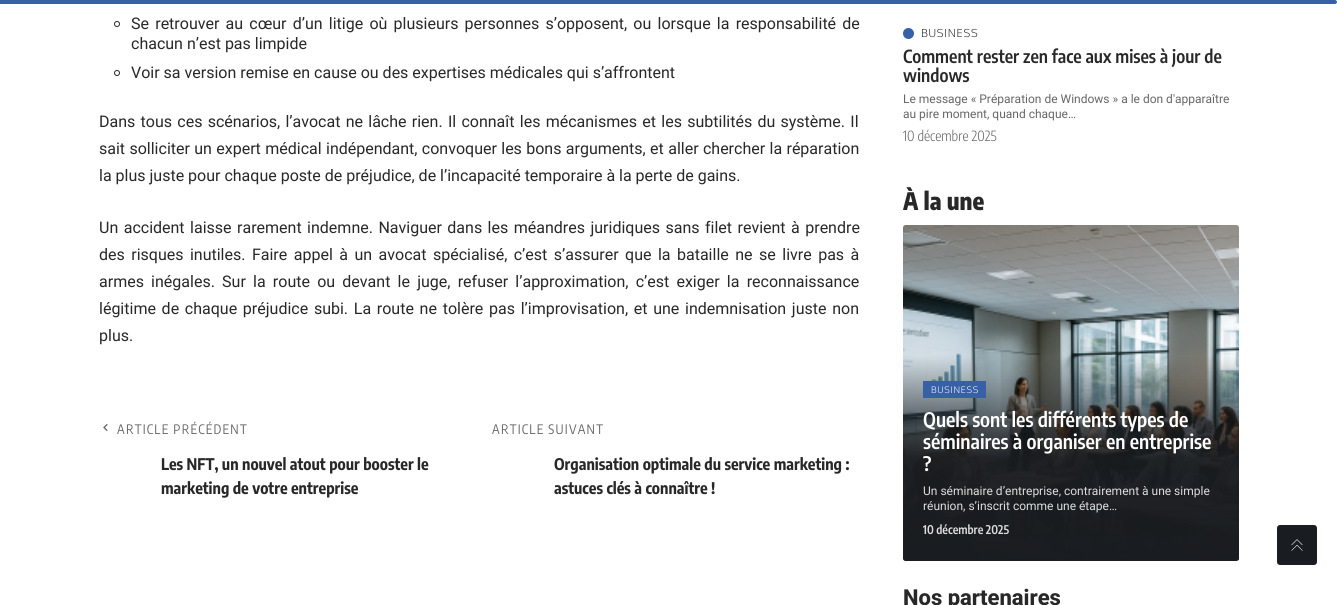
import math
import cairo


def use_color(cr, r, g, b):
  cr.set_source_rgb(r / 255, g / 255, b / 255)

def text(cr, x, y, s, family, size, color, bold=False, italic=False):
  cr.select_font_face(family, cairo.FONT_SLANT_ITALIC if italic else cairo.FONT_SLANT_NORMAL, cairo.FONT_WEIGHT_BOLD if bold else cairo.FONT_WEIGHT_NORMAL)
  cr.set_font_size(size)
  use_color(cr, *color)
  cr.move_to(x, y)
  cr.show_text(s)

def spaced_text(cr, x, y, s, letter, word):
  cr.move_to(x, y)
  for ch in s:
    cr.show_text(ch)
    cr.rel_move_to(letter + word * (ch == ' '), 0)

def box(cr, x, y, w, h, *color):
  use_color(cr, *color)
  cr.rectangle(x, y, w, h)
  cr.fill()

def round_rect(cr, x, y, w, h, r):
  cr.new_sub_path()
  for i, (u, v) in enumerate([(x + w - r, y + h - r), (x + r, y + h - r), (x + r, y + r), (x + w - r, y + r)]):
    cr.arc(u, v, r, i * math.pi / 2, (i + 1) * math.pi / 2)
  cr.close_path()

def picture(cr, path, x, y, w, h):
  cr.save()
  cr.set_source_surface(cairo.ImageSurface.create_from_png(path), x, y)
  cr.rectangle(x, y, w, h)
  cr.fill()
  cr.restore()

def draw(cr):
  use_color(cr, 255, 255, 255)
  cr.paint()
  use_color(cr, 55, 96, 167)
  cr.new_path()
  cr.move_to(0, 0)
  cr.line_to(1335, 0)
  cr.curve_to(1336, 0, 1337, 1, 1337, 2)
  cr.curve_to(1337, 3, 1336, 4, 1335, 4)
  cr.line_to(0, 4)
  cr.close_path()
  cr.fill()
  cr.arc(117, 24, 2.5, 0, 2 * math.pi)
  use_color(cr, 40, 40, 40)
  cr.set_line_width(1)
  cr.stroke()
  cr.arc(117, 73, 2.5, 0, 2 * math.pi)
  cr.stroke()
  picture(cr, "img_01.png", 103, 423, 5, 9)
  use_color(cr, 55, 96, 167)
  cr.arc(908.5, 33.5, 5.5, 0, 2 * math.pi)
  cr.fill()
  picture(cr, "img_02.png", 903, 225, 336, 336)
  gradient = cairo.LinearGradient(1071, 561, 1071, 356)
  gradient.add_color_stop_rgba(0, 0.098, 0.11, 0.125, 1)
  gradient.add_color_stop_rgba(0.5, 0.098, 0.11, 0.125, 0.95)
  gradient.add_color_stop_rgba(1, 0.098, 0.11, 0.125, 0)
  cr.set_source(gradient)
  cr.new_path()
  cr.move_to(903, 356)
  cr.line_to(1239, 356)
  cr.line_to(1239, 558)
  cr.curve_to(1239, 559.5, 1237.5, 561, 1236, 561)
  cr.line_to(906, 561)
  cr.curve_to(904.5, 561, 903, 559.5, 903, 558)
  cr.close_path()
  cr.fill()
  box(cr, 923, 381, 63, 17, 55, 96, 167)
  use_color(cr, 25, 28, 32)
  round_rect(cr, 1277, 525, 40, 40, 3)
  cr.fill()
  picture(cr, "img_03.png", 1291, 539, 12, 12)
  cr.select_font_face("Roboto")
  cr.set_font_size(16)
  use_color(cr, 40, 40, 40)
  spaced_text(cr, 131, 29, "Se retrouver au cœur d’un litige où plusieurs personnes s’opposent, ou lorsque la responsabilité de", 0, 2.25)
  text(cr, 131, 49, "chacun n’est pas limpide", "Roboto", 16, (40, 40, 40))
  text(cr, 131, 78, "Voir sa version remise en cause ou des expertises médicales qui s’affrontent", "Roboto", 16, (40, 40, 40))
  spaced_text(cr, 99, 127, "Dans tous ces scénarios, l’avocat ne lâche rien. Il connaît les mécanismes et les subtilités du système. Il", 0, 1.3)
  spaced_text(cr, 99, 154, "sait solliciter un expert médical indépendant, convoquer les bons arguments, et aller chercher la réparation", 0, 0.4)
  text(cr, 99, 181, "la plus juste pour chaque poste de préjudice, de l’incapacité temporaire à la perte de gains.", "Roboto", 16, (40, 40, 40))
  spaced_text(cr, 99, 233, "Un accident laisse rarement indemne. Naviguer dans les méandres juridiques sans filet revient à prendre", 0, 1.5)
  spaced_text(cr, 99, 260, "des risques inutiles. Faire appel à un avocat spécialisé, c’est s’assurer que la bataille ne se livre pas à", 0, 2.5)
  spaced_text(cr, 99, 287, "armes inégales. Sur la route ou devant le juge, refuser l’approximation, c’est exiger la reconnaissance", 0, 3.25)
  spaced_text(cr, 99, 314, "légitime de chaque préjudice subi. La route ne tolère pas l’improvisation, et une indemnisation juste non", 0, 1.75)
  text(cr, 99, 341, "plus.", "Roboto", 16, (40, 40, 40))
  cr.select_font_face("Encode Sans Condensed")
  cr.set_font_size(13)
  use_color(cr, 102, 102, 102)
  spaced_text(cr, 117, 434, "ARTICLE PRÉCÉDENT", 1.25, 0)
  text(cr, 161, 470, "Les NFT, un nouvel atout pour booster le", "Encode Sans Condensed", 16, (40, 40, 40), bold=True)
  text(cr, 161, 494, "marketing de votre entreprise", "Encode Sans Condensed", 16, (40, 40, 40), bold=True)
  cr.select_font_face("Encode Sans Condensed")
  cr.set_font_size(13)
  use_color(cr, 102, 102, 102)
  spaced_text(cr, 492, 434, "ARTICLE SUIVANT", 1.25, 0)
  text(cr, 554, 470, "Organisation optimale du service marketing :", "Encode Sans Condensed", 16, (40, 40, 40), bold=True)
  text(cr, 554, 494, "astuces clés à connaître !", "Encode Sans Condensed", 16, (40, 40, 40), bold=True)
  cr.select_font_face("Oxygen Light")
  cr.set_font_size(11)
  spaced_text(cr, 921, 37, "BUSINESS", 0.75, 0)
  text(cr, 903, 63, "Comment rester zen face aux mises à jour de", "Encode Sans Condensed SemiBold", 18, (40, 40, 40))
  text(cr, 903, 82, "windows", "Encode Sans Condensed SemiBold", 18, (40, 40, 40))
  text(cr, 903, 103, "Le message « Préparation de Windows » a le don d'apparaître", "Roboto", 12, (102, 102, 102))
  text(cr, 903, 118, "au pire moment, quand chaque…", "Roboto", 12, (102, 102, 102))
  text(cr, 903, 141, "10 décembre 2025", "Encode Sans Condensed Light", 14, (102, 102, 102))
  text(cr, 903, 210, "À la une", "Encode Sans Condensed ExtraBold", 24, (40, 40, 40))
  cr.select_font_face("Oxygen Light")
  cr.set_font_size(9)
  use_color(cr, 255, 255, 255)
  spaced_text(cr, 931, 393, "BUSINESS", 0.75, 0)
  text(cr, 923, 427, "Quels sont les différents types de", "Encode Sans Condensed SemiBold", 20, (255, 255, 255))
  text(cr, 923, 449, "séminaires à organiser en entreprise", "Encode Sans Condensed SemiBold", 20, (255, 255, 255))
  text(cr, 923, 471, "?", "Encode Sans Condensed SemiBold", 20, (255, 255, 255))
  text(cr, 923, 495, "Un séminaire d’entreprise, contrairement à une simple", "Roboto", 12, (221, 221, 221))
  text(cr, 923, 510, "réunion, s’inscrit comme une étape…", "Roboto", 12, (221, 221, 221))
  text(cr, 923, 534, "10 décembre 2025", "Encode Sans Condensed SemiBold", 12, (221, 221, 221))
  text(cr, 903, 605, "Nos partenaires", "Roboto ExtraBold", 22, (40, 40, 40))


surface = cairo.ImageSurface(cairo.FORMAT_RGB24, 1337, 605)
cr = cairo.Context(surface)
options = cairo.FontOptions()
options.set_hint_metrics(cairo.HINT_METRICS_OFF)
options.set_hint_style(cairo.HINT_STYLE_NONE)
cr.set_font_options(options)
cr.set_miter_limit(4)
draw(cr)
surface.write_to_png("out.png")
